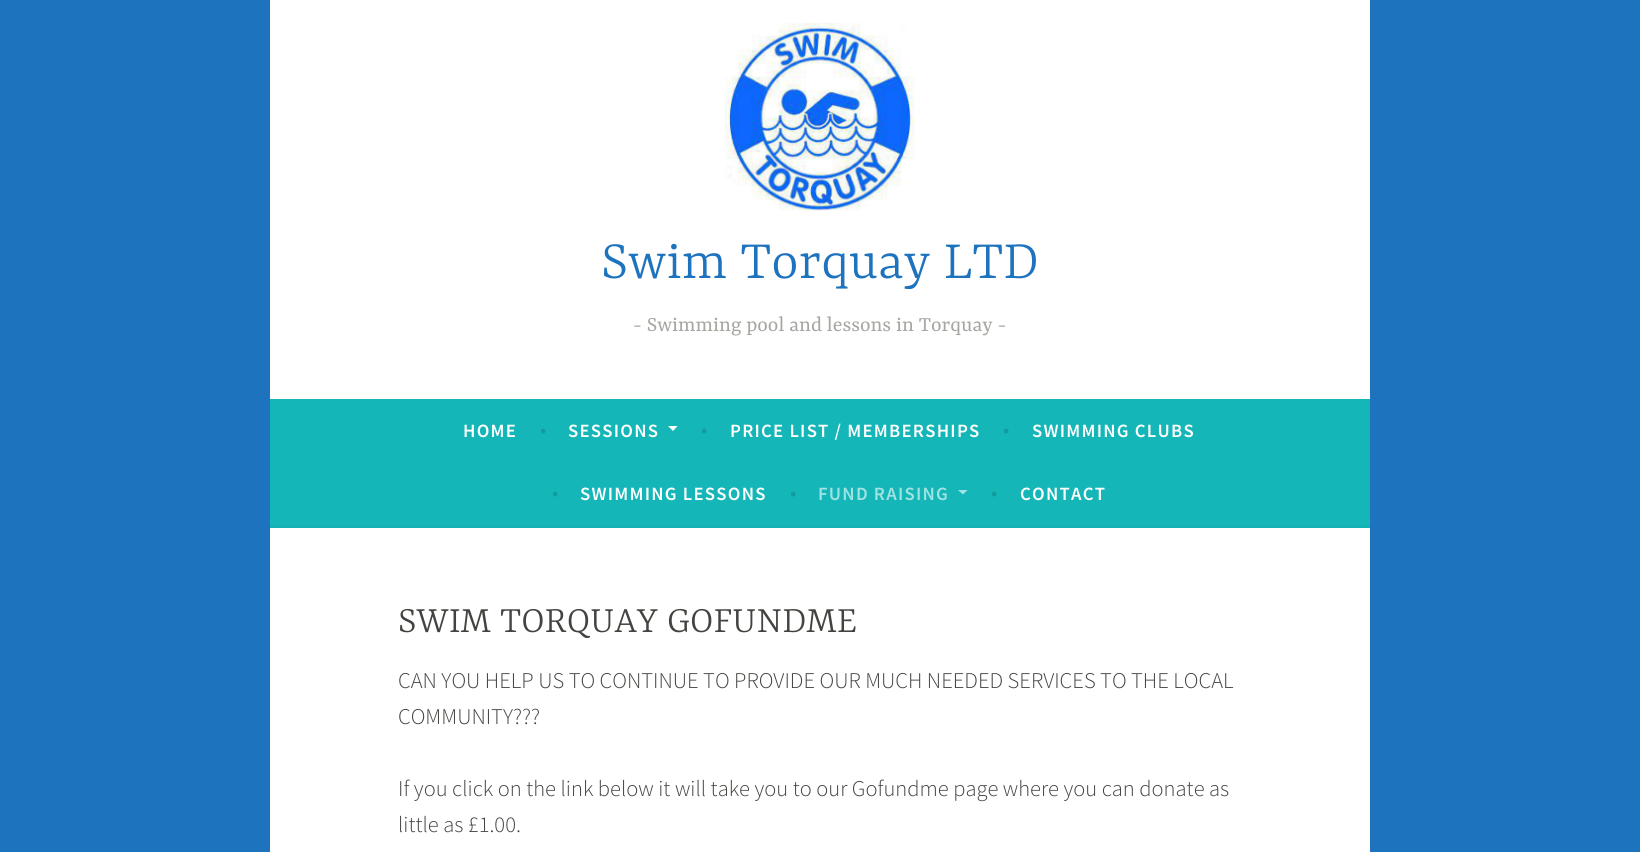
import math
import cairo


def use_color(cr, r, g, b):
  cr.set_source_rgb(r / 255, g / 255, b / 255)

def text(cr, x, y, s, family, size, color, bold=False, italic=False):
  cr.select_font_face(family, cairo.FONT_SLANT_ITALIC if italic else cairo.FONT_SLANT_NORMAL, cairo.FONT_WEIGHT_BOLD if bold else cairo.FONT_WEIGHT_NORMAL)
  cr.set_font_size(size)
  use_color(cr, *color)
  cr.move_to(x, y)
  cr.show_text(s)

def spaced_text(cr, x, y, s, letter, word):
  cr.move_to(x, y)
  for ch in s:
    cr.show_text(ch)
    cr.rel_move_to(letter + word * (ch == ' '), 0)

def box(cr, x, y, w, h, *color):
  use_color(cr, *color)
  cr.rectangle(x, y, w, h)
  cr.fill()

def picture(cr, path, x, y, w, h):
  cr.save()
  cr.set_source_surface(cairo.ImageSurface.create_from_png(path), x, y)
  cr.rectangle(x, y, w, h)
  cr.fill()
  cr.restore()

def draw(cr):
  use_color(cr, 30, 115, 190)
  cr.paint()
  box(cr, 270, 0, 1100, 399, 255, 255, 255)
  picture(cr, "img_01.png", 725, 22, 190, 189)
  box(cr, 270, 399, 1100, 126, 21, 182, 184)
  box(cr, 270, 525, 1100, 3, 20, 177, 178)
  use_color(cr, 255, 255, 255)
  cr.new_path()
  cr.move_to(668, 426)
  cr.line_to(677.5, 426)
  cr.line_to(673, 431)
  cr.close_path()
  cr.fill()
  use_color(cr, 161, 226, 227)
  cr.new_path()
  cr.move_to(958, 490)
  cr.line_to(967.5, 490)
  cr.line_to(963, 494.5)
  cr.close_path()
  cr.fill()
  box(cr, 270, 528, 1100, 324, 255, 255, 255)
  text(cr, 601, 278, "Swim Torquay LTD", "Yrsa Light", 58.75, (30, 115, 190))
  text(cr, 633, 331, "- Swimming pool and lessons in Torquay -", "Yrsa", 22.5, (168, 166, 161))
  cr.select_font_face("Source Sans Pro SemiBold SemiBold")
  cr.set_font_size(18.75)
  use_color(cr, 255, 255, 255)
  spaced_text(cr, 463, 437, "HOME", 1.25, 0)
  text(cr, 540, 437, "•", "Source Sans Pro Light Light", 22.5, (18, 155, 156))
  cr.select_font_face("Source Sans Pro SemiBold SemiBold")
  cr.set_font_size(18.75)
  use_color(cr, 255, 255, 255)
  spaced_text(cr, 568, 437, "SESSIONS", 1.25, 0)
  text(cr, 701, 437, "•", "Source Sans Pro Light Light", 22.5, (18, 155, 156))
  cr.select_font_face("Source Sans Pro SemiBold SemiBold")
  cr.set_font_size(18.75)
  use_color(cr, 255, 255, 255)
  spaced_text(cr, 730, 437, "PRICE LIST / MEMBERSHIPS", 1.25, 0)
  text(cr, 1003, 437, "•", "Source Sans Pro Light Light", 22.5, (18, 155, 156))
  cr.select_font_face("Source Sans Pro SemiBold SemiBold")
  cr.set_font_size(18.75)
  use_color(cr, 255, 255, 255)
  spaced_text(cr, 1032, 437, "SWIMMING CLUBS", 1.25, 0)
  text(cr, 552, 500, "•", "Source Sans Pro Light Light", 22.5, (18, 155, 156))
  cr.select_font_face("Source Sans Pro SemiBold SemiBold")
  cr.set_font_size(18.75)
  use_color(cr, 255, 255, 255)
  spaced_text(cr, 580, 500, "SWIMMING LESSONS", 1.25, 0)
  text(cr, 790, 500, "•", "Source Sans Pro Light Light", 22.5, (18, 155, 156))
  cr.select_font_face("Source Sans Pro SemiBold SemiBold")
  cr.set_font_size(18.75)
  use_color(cr, 161, 226, 227)
  spaced_text(cr, 818, 500, "FUND RAISING", 1.25, 0)
  text(cr, 991, 500, "•", "Source Sans Pro Light Light", 22.5, (18, 155, 156))
  cr.select_font_face("Source Sans Pro SemiBold SemiBold")
  cr.set_font_size(18.75)
  use_color(cr, 255, 255, 255)
  spaced_text(cr, 1020, 500, "CONTACT", 1.25, 0)
  text(cr, 398, 632, "SWIM TORQUAY GOFUNDME", "Yrsa Light", 40, (68, 67, 64))
  text(cr, 398, 688, "CAN YOU HELP US TO CONTINUE TO PROVIDE OUR MUCH NEEDED SERVICES TO THE LOCAL", "Source Sans Pro Light Light", 22.5, (68, 67, 64))
  text(cr, 398, 724, "COMMUNITY???", "Source Sans Pro Light Light", 22.5, (68, 67, 64))
  text(cr, 398, 796, "If you click on the link below it will take you to our Gofundme page where you can donate as", "Source Sans Pro Light Light", 22.5, (68, 67, 64))
  text(cr, 398, 832, "little as £1.00.", "Source Sans Pro Light Light", 22.5, (68, 67, 64))


surface = cairo.ImageSurface(cairo.FORMAT_RGB24, 1640, 852)
cr = cairo.Context(surface)
options = cairo.FontOptions()
options.set_hint_metrics(cairo.HINT_METRICS_OFF)
options.set_hint_style(cairo.HINT_STYLE_NONE)
cr.set_font_options(options)
cr.set_miter_limit(4)
draw(cr)
surface.write_to_png("out.png")
